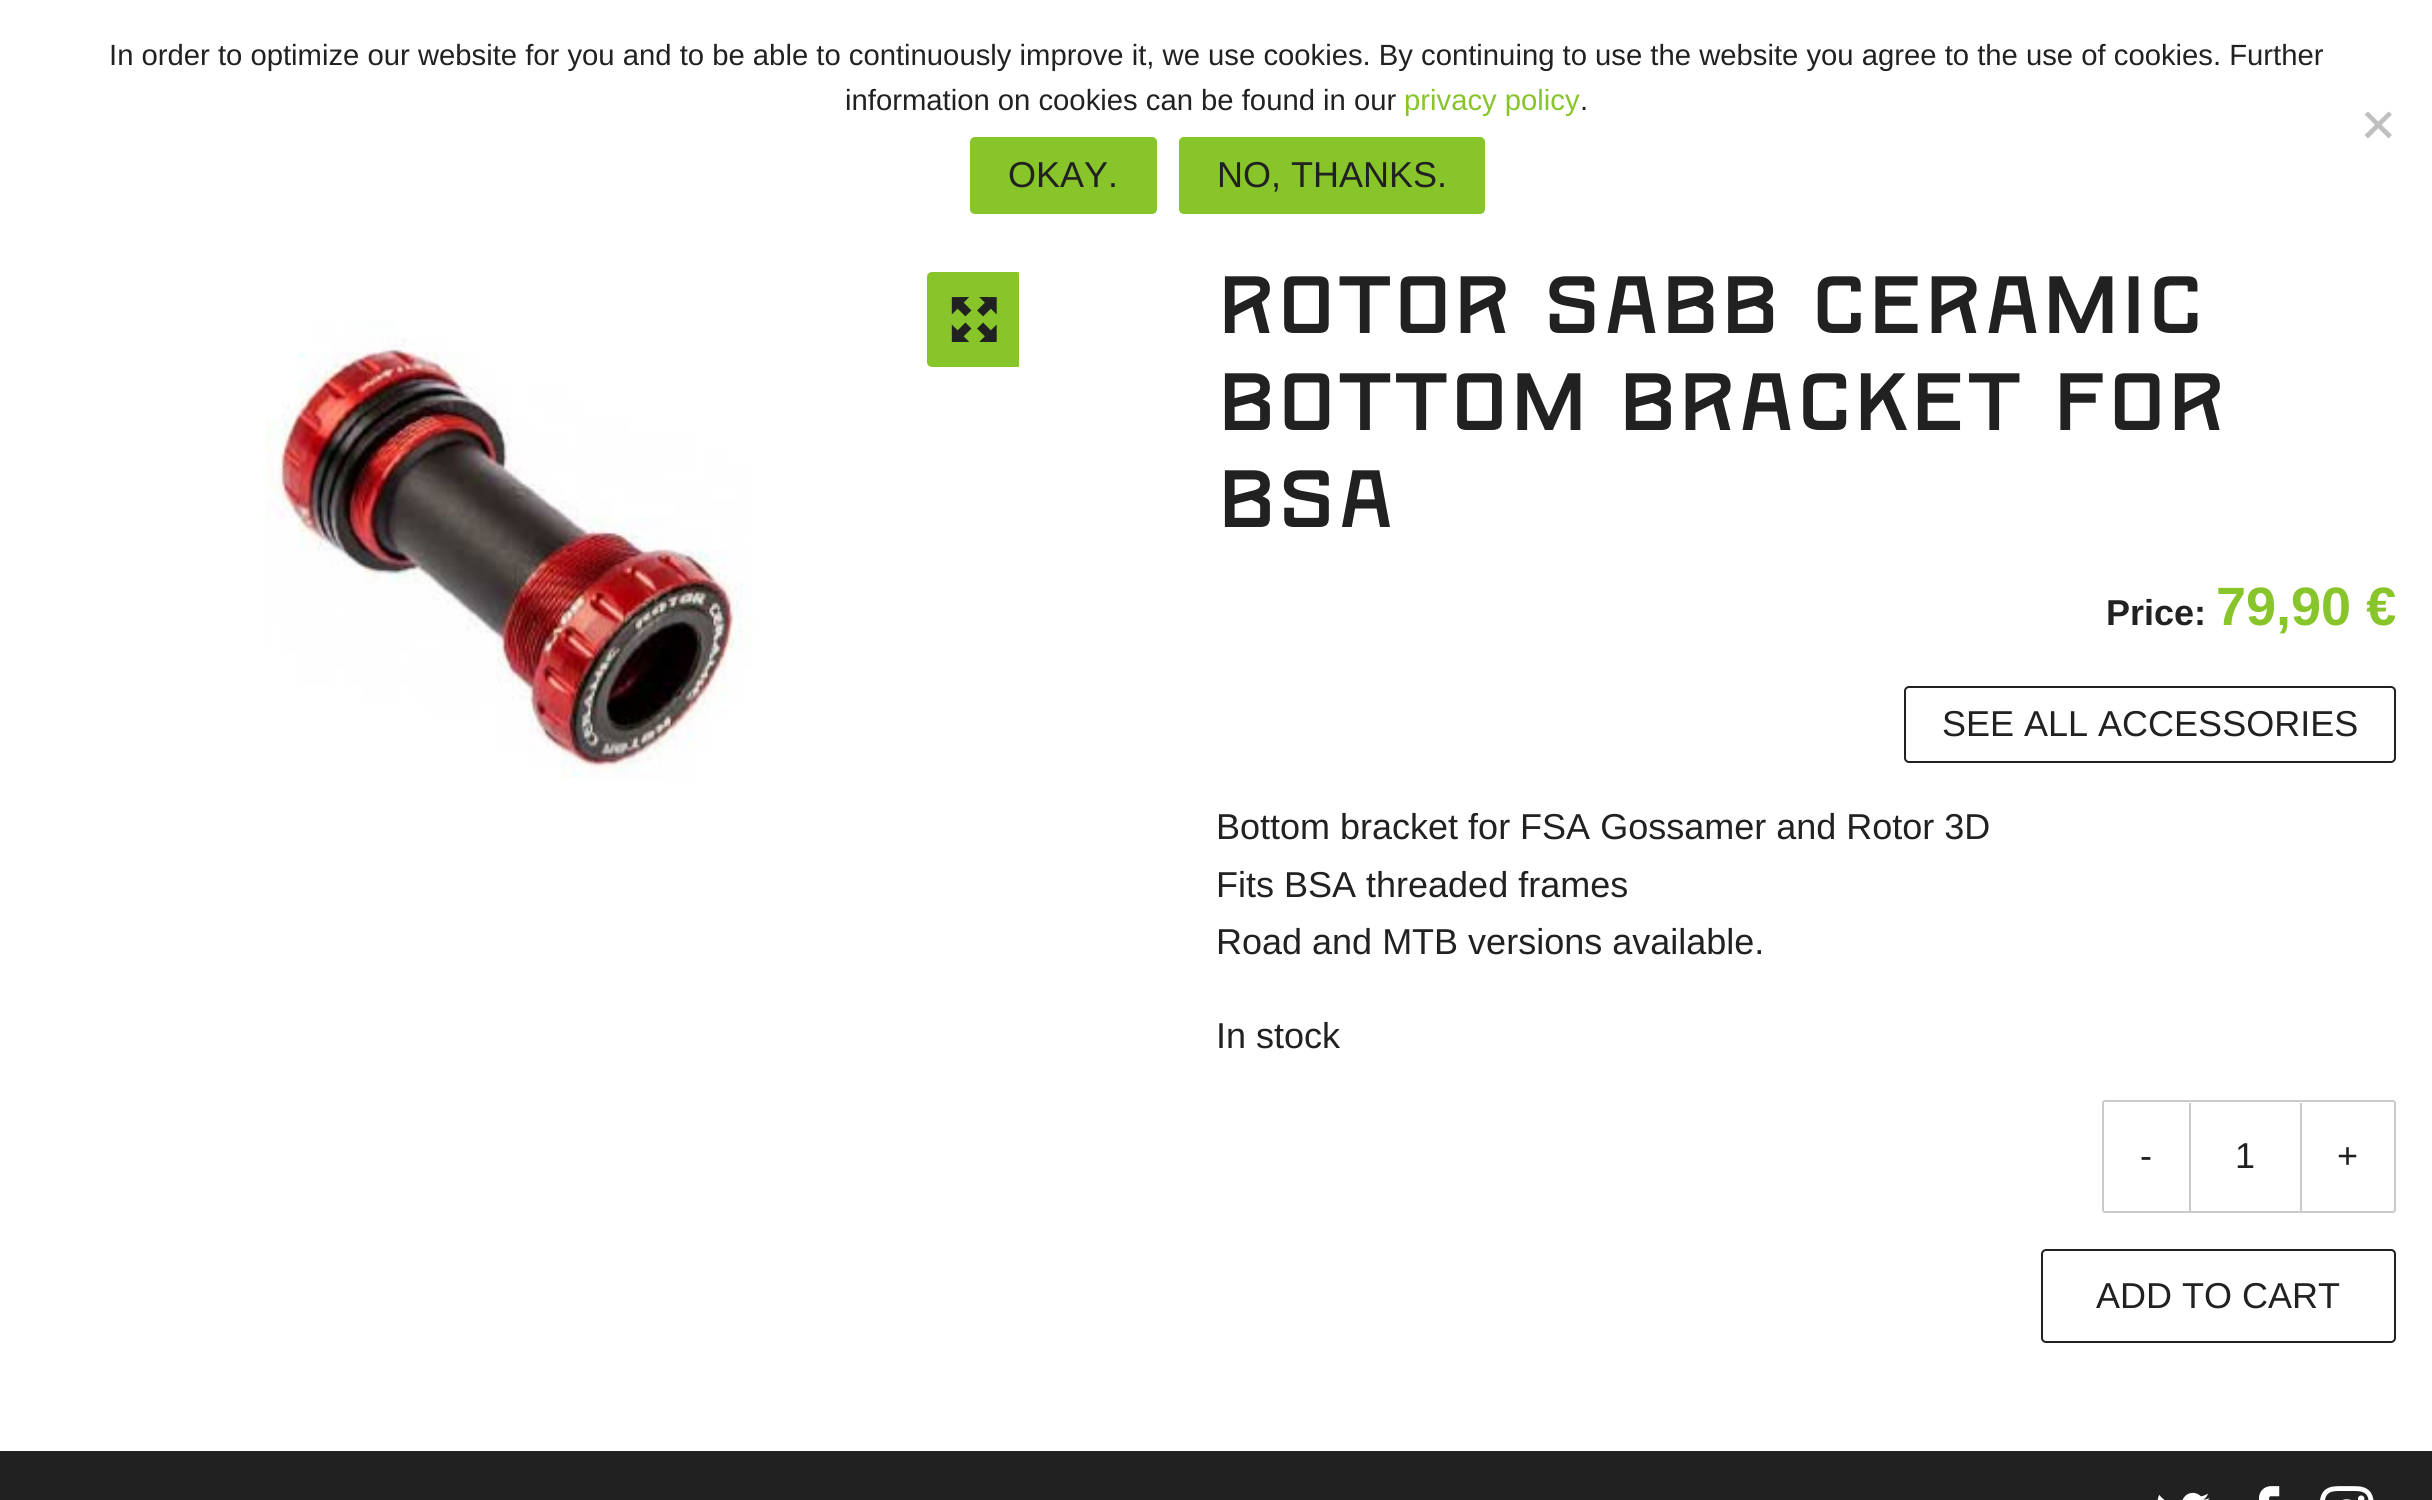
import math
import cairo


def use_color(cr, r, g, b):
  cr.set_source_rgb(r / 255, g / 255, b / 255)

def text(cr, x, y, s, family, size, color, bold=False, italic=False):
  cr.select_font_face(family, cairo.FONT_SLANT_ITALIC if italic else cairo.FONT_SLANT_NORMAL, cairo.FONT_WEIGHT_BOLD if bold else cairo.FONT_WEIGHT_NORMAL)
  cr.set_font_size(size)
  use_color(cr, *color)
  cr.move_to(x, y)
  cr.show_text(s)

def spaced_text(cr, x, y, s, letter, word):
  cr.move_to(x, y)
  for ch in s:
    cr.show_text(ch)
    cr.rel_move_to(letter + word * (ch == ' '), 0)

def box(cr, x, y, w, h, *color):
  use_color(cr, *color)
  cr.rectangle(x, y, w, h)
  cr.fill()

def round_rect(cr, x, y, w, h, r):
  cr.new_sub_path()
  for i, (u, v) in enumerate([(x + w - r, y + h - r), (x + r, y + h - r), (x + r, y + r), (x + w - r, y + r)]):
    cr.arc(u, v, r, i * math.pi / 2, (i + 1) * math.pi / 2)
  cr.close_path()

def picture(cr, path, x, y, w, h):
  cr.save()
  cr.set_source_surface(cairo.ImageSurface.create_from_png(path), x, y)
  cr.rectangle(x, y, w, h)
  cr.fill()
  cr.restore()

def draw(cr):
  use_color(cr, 255, 255, 255)
  cr.paint()
  use_color(cr, 192, 192, 192)
  cr.new_path()
  cr.move_to(2388.5, 111.5)
  cr.line_to(2392, 114.5)
  cr.line_to(2368, 138.5)
  cr.line_to(2364.5, 135)
  cr.close_path()
  cr.fill()
  cr.new_path()
  cr.move_to(2364.5, 114.5)
  cr.line_to(2368, 111.5)
  cr.line_to(2392, 135)
  cr.line_to(2388.5, 138.5)
  cr.close_path()
  cr.fill()
  use_color(cr, 135, 197, 43)
  round_rect(cr, 970, 137, 187, 77, 5)
  cr.fill()
  round_rect(cr, 1179, 137, 306, 77, 5)
  cr.fill()
  picture(cr, "img_01.png", 265, 321, 488, 460)
  cr.save()
  cr.rectangle(36, 254, 983, 714)
  cr.clip()
  round_rect(cr, 927, 272, 95, 95, 5)
  cr.fill()
  cr.restore()
  picture(cr, "img_02.png", 951, 297, 46, 45)
  round_rect(cr, 1905, 687, 490, 75, 4)
  use_color(cr, 33, 33, 33)
  cr.stroke()
  round_rect(cr, 2103, 1101, 292, 111, 2)
  use_color(cr, 202, 202, 202)
  cr.stroke()
  box(cr, 2300, 1103, 2, 108, 202, 202, 202)
  box(cr, 2189, 1103, 2, 108, 202, 202, 202)
  round_rect(cr, 2042, 1250, 353, 92, 4)
  use_color(cr, 33, 33, 33)
  cr.stroke()
  box(cr, 0, 1451, 2432, 49, 33, 33, 33)
  picture(cr, "img_03.png", 2157, 1492, 53, 8)
  picture(cr, "img_04.png", 2259, 1486, 21, 14)
  picture(cr, "img_05.png", 2320, 1486, 54, 14)
  text(cr, 109, 65, "In order to optimize our website for you and to be able to continuously improve it, we use cookies. By continuing to use the website you agree to the use of cookies. Further", "Liberation Sans", 29.25, (33, 33, 33))
  text(cr, 845, 110, "information on cookies can be found in our", "Liberation Sans", 29.25, (33, 33, 33))
  text(cr, 1404, 110, "privacy policy", "Liberation Sans", 29.25, (135, 197, 43))
  text(cr, 1580, 110, ".", "Liberation Sans", 29.25, (33, 33, 33))
  text(cr, 1008, 187, "OKAY.", "Liberation Sans", 36, (33, 33, 33))
  text(cr, 1217, 187, "NO, THANKS.", "Liberation Sans", 36, (33, 33, 33))
  cr.select_font_face("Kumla")
  cr.set_font_size(81)
  spaced_text(cr, 1216, 333, "Rotor SABB ceramic", -2.25, 0)
  spaced_text(cr, 1216, 430, "bottom bracket for", -2.25, 0)
  spaced_text(cr, 1216, 527, "BSA", -2.25, 0)
  text(cr, 2106, 625, "Price:", "Liberation Sans", 36, (33, 33, 33), bold=True)
  text(cr, 2216, 625, "79,90 €", "Liberation Sans", 54, (135, 197, 43), bold=True)
  text(cr, 1942, 736, "SEE ALL ACCESSORIES", "Liberation Sans", 36, (33, 33, 33))
  text(cr, 1216, 839, "Bottom bracket for FSA Gossamer and Rotor 3D", "Liberation Sans", 36, (33, 33, 33))
  text(cr, 1216, 897, "Fits BSA threaded frames", "Liberation Sans", 36, (33, 33, 33))
  text(cr, 1216, 954, "Road and MTB versions available.", "Liberation Sans", 36, (33, 33, 33))
  text(cr, 1216, 1048, "In stock", "Liberation Sans", 36, (33, 33, 33))
  text(cr, 2140, 1168, "-", "Liberation Sans", 36, (33, 33, 33))
  text(cr, 2235, 1168, "1", "Liberation Sans", 36, (33, 33, 33))
  text(cr, 2337, 1168, "+", "Liberation Sans", 36, (33, 33, 33))
  text(cr, 2096, 1308, "ADD TO CART", "Liberation Sans", 36, (33, 33, 33))


surface = cairo.ImageSurface(cairo.FORMAT_RGB24, 2432, 1500)
cr = cairo.Context(surface)
options = cairo.FontOptions()
options.set_hint_metrics(cairo.HINT_METRICS_OFF)
options.set_hint_style(cairo.HINT_STYLE_NONE)
cr.set_font_options(options)
cr.set_miter_limit(4)
draw(cr)
surface.write_to_png("out.png")
